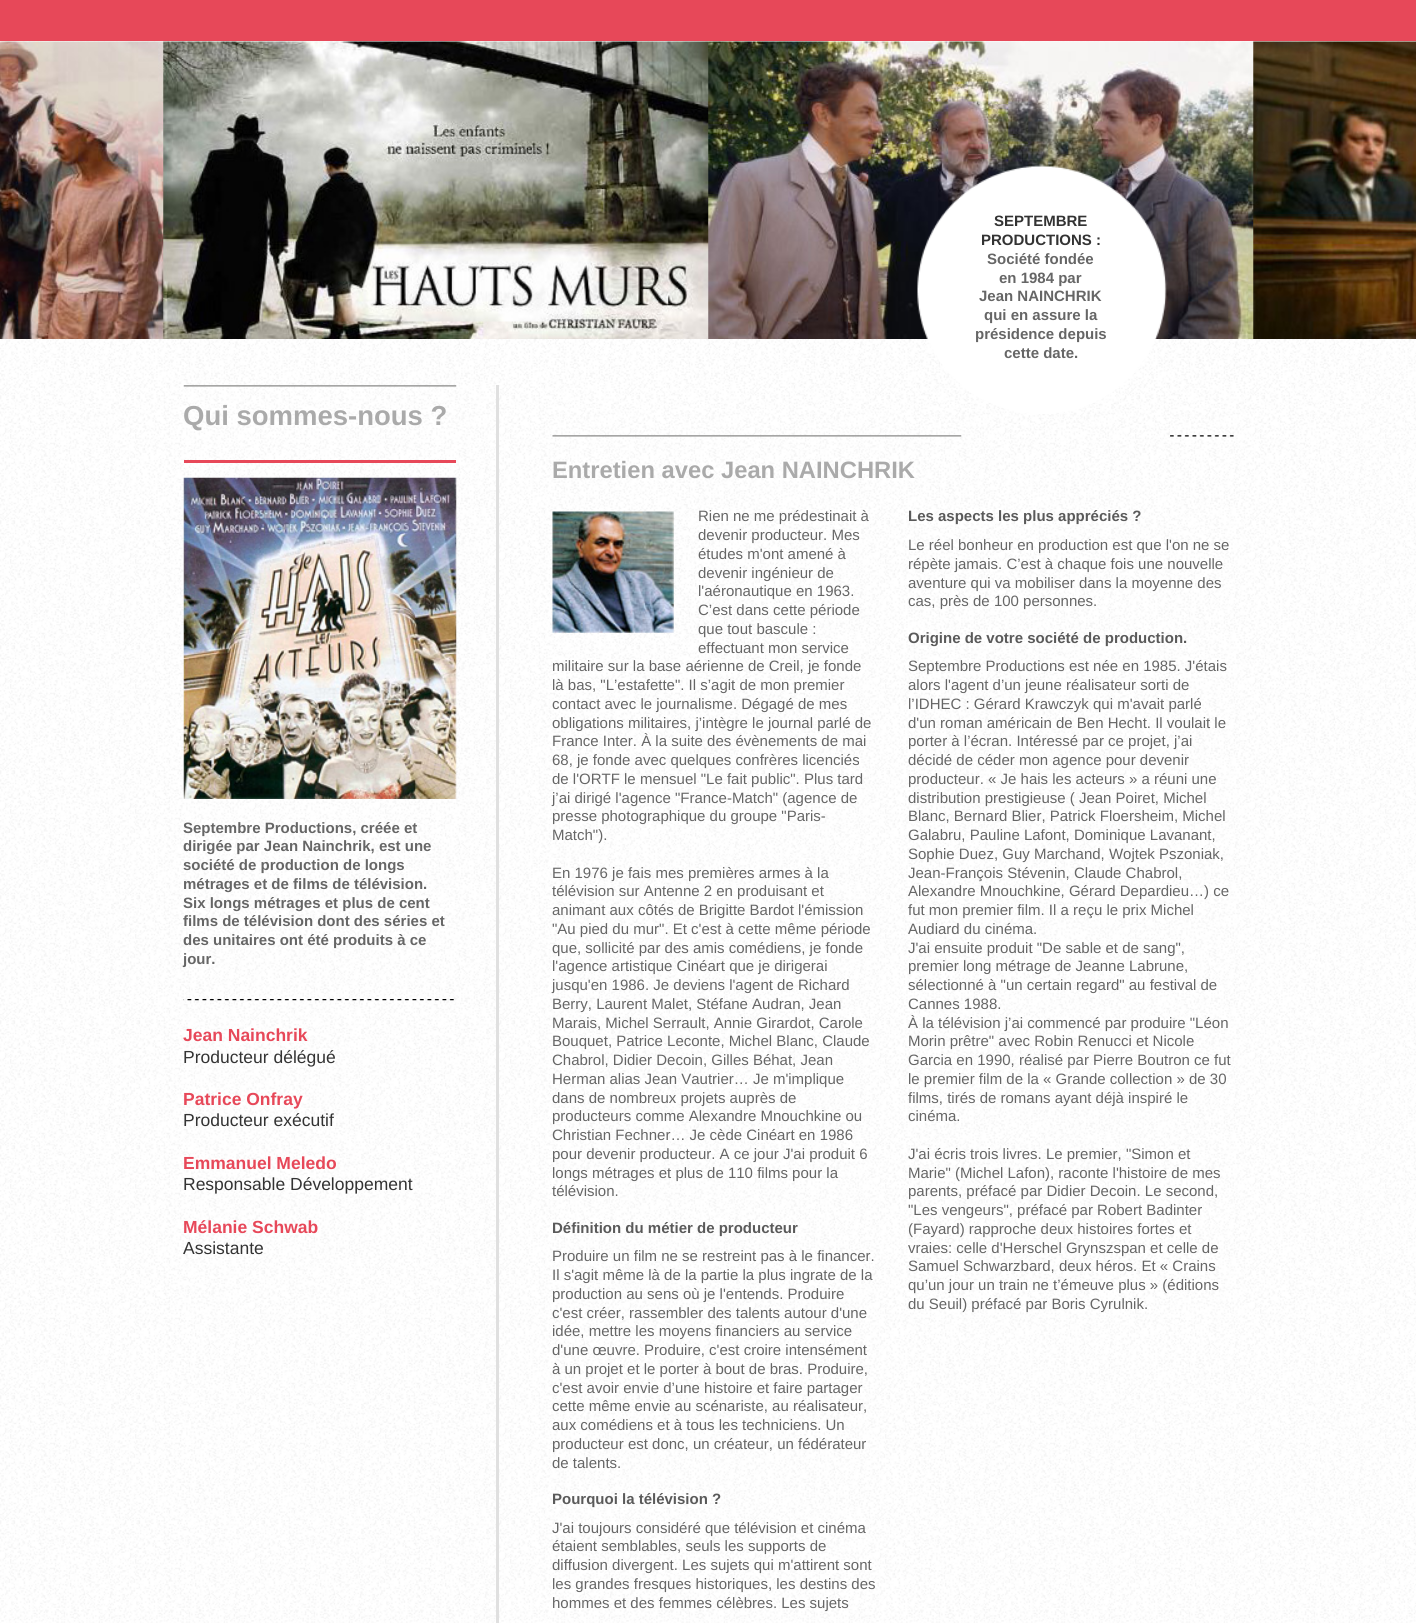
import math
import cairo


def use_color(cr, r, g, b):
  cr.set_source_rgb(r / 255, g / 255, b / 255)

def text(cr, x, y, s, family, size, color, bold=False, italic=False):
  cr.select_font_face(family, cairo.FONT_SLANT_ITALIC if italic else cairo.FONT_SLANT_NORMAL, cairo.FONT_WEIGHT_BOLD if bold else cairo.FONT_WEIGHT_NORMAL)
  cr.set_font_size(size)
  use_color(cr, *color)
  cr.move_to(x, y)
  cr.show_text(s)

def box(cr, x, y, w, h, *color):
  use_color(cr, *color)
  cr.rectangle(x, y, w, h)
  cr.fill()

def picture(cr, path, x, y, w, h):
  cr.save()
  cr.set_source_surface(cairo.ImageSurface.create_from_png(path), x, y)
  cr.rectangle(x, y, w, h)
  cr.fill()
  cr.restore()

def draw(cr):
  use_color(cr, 255, 255, 255)
  cr.paint()
  picture(cr, "img_01.png", 0, 41, 1416, 1582)
  box(cr, 0, 0, 1416, 41, 231, 72, 89)
  picture(cr, "img_02.png", 0, 41, 1416, 298)
  picture(cr, "img_03.png", 917, 165, 250, 249)
  picture(cr, "img_04.png", 183, 385, 274, 2)
  box(cr, 184, 460, 272, 3, 231, 72, 89)
  picture(cr, "img_05.png", 183, 477, 274, 322)
  picture(cr, "img_06.png", 183, 999, 271, 2)
  box(cr, 496, 385, 3, 1238, 224, 224, 224)
  picture(cr, "img_07.png", 1170, 435, 64, 2)
  picture(cr, "img_08.png", 552, 435, 410, 2)
  picture(cr, "img_09.png", 552, 511, 122, 122)
  text(cr, 994, 226, "SEPTEMBRE", "Liberation Sans", 15, (51, 51, 51), bold=True)
  text(cr, 981, 245, "PRODUCTIONS :", "Liberation Sans", 15, (51, 51, 51), bold=True)
  text(cr, 987, 264, "Société fondée", "Liberation Sans", 15, (102, 102, 102), bold=True)
  text(cr, 999, 283, "en 1984 par", "Liberation Sans", 15, (102, 102, 102), bold=True)
  text(cr, 979, 301, "Jean NAINCHRIK", "Liberation Sans", 15, (102, 102, 102), bold=True)
  text(cr, 984, 320, "qui en assure la", "Liberation Sans", 15, (102, 102, 102), bold=True)
  text(cr, 975, 339, "présidence depuis", "Liberation Sans", 15, (102, 102, 102), bold=True)
  text(cr, 1004, 358, "cette date.", "Liberation Sans", 15, (102, 102, 102), bold=True)
  text(cr, 183, 425, "Qui sommes-nous ?", "Liberation Sans", 27.5, (170, 170, 170), bold=True)
  text(cr, 183, 833, "Septembre Productions, créée et", "Liberation Sans", 15, (102, 102, 102), bold=True)
  text(cr, 183, 851, "dirigée par Jean Nainchrik, est une", "Liberation Sans", 15, (102, 102, 102), bold=True)
  text(cr, 183, 870, "société de production de longs", "Liberation Sans", 15, (102, 102, 102), bold=True)
  text(cr, 183, 889, "métrages et de films de télévision.", "Liberation Sans", 15, (102, 102, 102), bold=True)
  text(cr, 183, 908, "Six longs métrages et plus de cent", "Liberation Sans", 15, (102, 102, 102), bold=True)
  text(cr, 183, 926, "films de télévision dont des séries et", "Liberation Sans", 15, (102, 102, 102), bold=True)
  text(cr, 183, 945, "des unitaires ont été produits à ce", "Liberation Sans", 15, (102, 102, 102), bold=True)
  text(cr, 183, 964, "jour.", "Liberation Sans", 15, (102, 102, 102), bold=True)
  text(cr, 183, 1041, "Jean Nainchrik", "Liberation Sans", 17.5, (231, 72, 89), bold=True)
  text(cr, 183, 1063, "Producteur délégué", "Liberation Sans", 17.5, (51, 51, 51))
  text(cr, 183, 1105, "Patrice Onfray", "Liberation Sans", 17.5, (231, 72, 89), bold=True)
  text(cr, 183, 1126, "Producteur exécutif", "Liberation Sans", 17.5, (51, 51, 51))
  text(cr, 183, 1169, "Emmanuel Meledo", "Liberation Sans", 17.5, (231, 72, 89), bold=True)
  text(cr, 183, 1190, "Responsable Développement", "Liberation Sans", 17.5, (51, 51, 51))
  text(cr, 183, 1233, "Mélanie Schwab", "Liberation Sans", 17.5, (231, 72, 89), bold=True)
  text(cr, 183, 1254, "Assistante", "Liberation Sans", 17.5, (51, 51, 51))
  text(cr, 552, 478, "Entretien avec Jean NAINCHRIK", "Liberation Sans", 23.75, (170, 170, 170), bold=True)
  text(cr, 698, 521, "Rien ne me prédestinait à", "Liberation Sans", 15, (102, 102, 102))
  text(cr, 698, 540, "devenir producteur. Mes", "Liberation Sans", 15, (102, 102, 102))
  text(cr, 698, 559, "études m'ont amené à", "Liberation Sans", 15, (102, 102, 102))
  text(cr, 698, 578, "devenir ingénieur de", "Liberation Sans", 15, (102, 102, 102))
  text(cr, 698, 596, "l'aéronautique en 1963.", "Liberation Sans", 15, (102, 102, 102))
  text(cr, 698, 615, "C’est dans cette période", "Liberation Sans", 15, (102, 102, 102))
  text(cr, 698, 634, "que tout bascule :", "Liberation Sans", 15, (102, 102, 102))
  text(cr, 698, 653, "effectuant mon service", "Liberation Sans", 15, (102, 102, 102))
  text(cr, 552, 671, "militaire sur la base aérienne de Creil, je fonde", "Liberation Sans", 15, (102, 102, 102))
  text(cr, 552, 690, "là bas, \"L’estafette\". Il s’agit de mon premier", "Liberation Sans", 15, (102, 102, 102))
  text(cr, 552, 709, "contact avec le journalisme. Dégagé de mes", "Liberation Sans", 15, (102, 102, 102))
  text(cr, 552, 728, "obligations militaires, j’intègre le journal parlé de", "Liberation Sans", 15, (102, 102, 102))
  text(cr, 552, 746, "France Inter. À la suite des évènements de mai", "Liberation Sans", 15, (102, 102, 102))
  text(cr, 552, 765, "68, je fonde avec quelques confrères licenciés", "Liberation Sans", 15, (102, 102, 102))
  text(cr, 552, 784, "de l'ORTF le mensuel \"Le fait public\". Plus tard", "Liberation Sans", 15, (102, 102, 102))
  text(cr, 552, 803, "j’ai dirigé l'agence \"France-Match\" (agence de", "Liberation Sans", 15, (102, 102, 102))
  text(cr, 552, 821, "presse photographique du groupe \"Paris-", "Liberation Sans", 15, (102, 102, 102))
  text(cr, 552, 840, "Match\").", "Liberation Sans", 15, (102, 102, 102))
  text(cr, 552, 878, "En 1976 je fais mes premières armes à la", "Liberation Sans", 15, (102, 102, 102))
  text(cr, 552, 896, "télévision sur Antenne 2 en produisant et", "Liberation Sans", 15, (102, 102, 102))
  text(cr, 552, 915, "animant aux côtés de Brigitte Bardot l'émission", "Liberation Sans", 15, (102, 102, 102))
  text(cr, 552, 934, "\"Au pied du mur\". Et c'est à cette même période", "Liberation Sans", 15, (102, 102, 102))
  text(cr, 552, 953, "que, sollicité par des amis comédiens, je fonde", "Liberation Sans", 15, (102, 102, 102))
  text(cr, 552, 971, "l'agence artistique Cinéart que je dirigerai", "Liberation Sans", 15, (102, 102, 102))
  text(cr, 552, 990, "jusqu'en 1986. Je deviens l'agent de Richard", "Liberation Sans", 15, (102, 102, 102))
  text(cr, 552, 1009, "Berry, Laurent Malet, Stéfane Audran, Jean", "Liberation Sans", 15, (102, 102, 102))
  text(cr, 552, 1028, "Marais, Michel Serrault, Annie Girardot, Carole", "Liberation Sans", 15, (102, 102, 102))
  text(cr, 552, 1046, "Bouquet, Patrice Leconte, Michel Blanc, Claude", "Liberation Sans", 15, (102, 102, 102))
  text(cr, 552, 1065, "Chabrol, Didier Decoin, Gilles Béhat, Jean", "Liberation Sans", 15, (102, 102, 102))
  text(cr, 552, 1084, "Herman alias Jean Vautrier… Je m'implique", "Liberation Sans", 15, (102, 102, 102))
  text(cr, 552, 1103, "dans de nombreux projets auprès de", "Liberation Sans", 15, (102, 102, 102))
  text(cr, 552, 1121, "producteurs comme Alexandre Mnouchkine ou", "Liberation Sans", 15, (102, 102, 102))
  text(cr, 552, 1140, "Christian Fechner… Je cède Cinéart en 1986", "Liberation Sans", 15, (102, 102, 102))
  text(cr, 552, 1159, "pour devenir producteur. A ce jour J'ai produit 6", "Liberation Sans", 15, (102, 102, 102))
  text(cr, 552, 1178, "longs métrages et plus de 110 films pour la", "Liberation Sans", 15, (102, 102, 102))
  text(cr, 552, 1196, "télévision.", "Liberation Sans", 15, (102, 102, 102))
  text(cr, 552, 1233, "Définition du métier de producteur", "Liberation Sans", 15, (90, 90, 90), bold=True)
  text(cr, 552, 1261, "Produire un film ne se restreint pas à le financer.", "Liberation Sans", 15, (102, 102, 102))
  text(cr, 552, 1280, "Il s'agit même là de la partie la plus ingrate de la", "Liberation Sans", 15, (102, 102, 102))
  text(cr, 552, 1299, "production au sens où je l'entends. Produire", "Liberation Sans", 15, (102, 102, 102))
  text(cr, 552, 1318, "c'est créer, rassembler des talents autour d'une", "Liberation Sans", 15, (102, 102, 102))
  text(cr, 552, 1336, "idée, mettre les moyens financiers au service", "Liberation Sans", 15, (102, 102, 102))
  text(cr, 552, 1355, "d'une œuvre. Produire, c'est croire intensément", "Liberation Sans", 15, (102, 102, 102))
  text(cr, 552, 1374, "à un projet et le porter à bout de bras. Produire,", "Liberation Sans", 15, (102, 102, 102))
  text(cr, 552, 1393, "c'est avoir envie d’une histoire et faire partager", "Liberation Sans", 15, (102, 102, 102))
  text(cr, 552, 1411, "cette même envie au scénariste, au réalisateur,", "Liberation Sans", 15, (102, 102, 102))
  text(cr, 552, 1430, "aux comédiens et à tous les techniciens. Un", "Liberation Sans", 15, (102, 102, 102))
  text(cr, 552, 1449, "producteur est donc, un créateur, un fédérateur", "Liberation Sans", 15, (102, 102, 102))
  text(cr, 552, 1468, "de talents.", "Liberation Sans", 15, (102, 102, 102))
  text(cr, 552, 1504, "Pourquoi la télévision ?", "Liberation Sans", 15, (90, 90, 90), bold=True)
  text(cr, 552, 1533, "J'ai toujours considéré que télévision et cinéma", "Liberation Sans", 15, (102, 102, 102))
  text(cr, 552, 1551, "étaient semblables, seuls les supports de", "Liberation Sans", 15, (102, 102, 102))
  text(cr, 552, 1570, "diffusion divergent. Les sujets qui m'attirent sont", "Liberation Sans", 15, (102, 102, 102))
  text(cr, 552, 1589, "les grandes fresques historiques, les destins des", "Liberation Sans", 15, (102, 102, 102))
  text(cr, 552, 1608, "hommes et des femmes célèbres. Les sujets", "Liberation Sans", 15, (102, 102, 102))
  text(cr, 908, 521, "Les aspects les plus appréciés ?", "Liberation Sans", 15, (90, 90, 90), bold=True)
  text(cr, 908, 550, "Le réel bonheur en production est que l'on ne se", "Liberation Sans", 15, (102, 102, 102))
  text(cr, 908, 569, "répète jamais. C’est à chaque fois une nouvelle", "Liberation Sans", 15, (102, 102, 102))
  text(cr, 908, 588, "aventure qui va mobiliser dans la moyenne des", "Liberation Sans", 15, (102, 102, 102))
  text(cr, 908, 606, "cas, près de 100 personnes.", "Liberation Sans", 15, (102, 102, 102))
  text(cr, 908, 643, "Origine de votre société de production.", "Liberation Sans", 15, (90, 90, 90), bold=True)
  text(cr, 908, 671, "Septembre Productions est née en 1985. J'étais", "Liberation Sans", 15, (102, 102, 102))
  text(cr, 908, 690, "alors l'agent d’un jeune réalisateur sorti de", "Liberation Sans", 15, (102, 102, 102))
  text(cr, 908, 709, "l’IDHEC : Gérard Krawczyk qui m'avait parlé", "Liberation Sans", 15, (102, 102, 102))
  text(cr, 908, 728, "d'un roman américain de Ben Hecht. Il voulait le", "Liberation Sans", 15, (102, 102, 102))
  text(cr, 908, 746, "porter à l’écran. Intéressé par ce projet, j’ai", "Liberation Sans", 15, (102, 102, 102))
  text(cr, 908, 765, "décidé de céder mon agence pour devenir", "Liberation Sans", 15, (102, 102, 102))
  text(cr, 908, 784, "producteur. « Je hais les acteurs » a réuni une", "Liberation Sans", 15, (102, 102, 102))
  text(cr, 908, 803, "distribution prestigieuse ( Jean Poiret, Michel", "Liberation Sans", 15, (102, 102, 102))
  text(cr, 908, 821, "Blanc, Bernard Blier, Patrick Floersheim, Michel", "Liberation Sans", 15, (102, 102, 102))
  text(cr, 908, 840, "Galabru, Pauline Lafont, Dominique Lavanant,", "Liberation Sans", 15, (102, 102, 102))
  text(cr, 908, 859, "Sophie Duez, Guy Marchand, Wojtek Pszoniak,", "Liberation Sans", 15, (102, 102, 102))
  text(cr, 908, 878, "Jean-François Stévenin, Claude Chabrol,", "Liberation Sans", 15, (102, 102, 102))
  text(cr, 908, 896, "Alexandre Mnouchkine, Gérard Depardieu…) ce", "Liberation Sans", 15, (102, 102, 102))
  text(cr, 908, 915, "fut mon premier film. Il a reçu le prix Michel", "Liberation Sans", 15, (102, 102, 102))
  text(cr, 908, 934, "Audiard du cinéma.", "Liberation Sans", 15, (102, 102, 102))
  text(cr, 908, 953, "J'ai ensuite produit \"De sable et de sang\",", "Liberation Sans", 15, (102, 102, 102))
  text(cr, 908, 971, "premier long métrage de Jeanne Labrune,", "Liberation Sans", 15, (102, 102, 102))
  text(cr, 908, 990, "sélectionné à \"un certain regard\" au festival de", "Liberation Sans", 15, (102, 102, 102))
  text(cr, 908, 1009, "Cannes 1988.", "Liberation Sans", 15, (102, 102, 102))
  text(cr, 908, 1028, "À la télévision j’ai commencé par produire \"Léon", "Liberation Sans", 15, (102, 102, 102))
  text(cr, 908, 1046, "Morin prêtre\" avec Robin Renucci et Nicole", "Liberation Sans", 15, (102, 102, 102))
  text(cr, 908, 1065, "Garcia en 1990, réalisé par Pierre Boutron ce fut", "Liberation Sans", 15, (102, 102, 102))
  text(cr, 908, 1084, "le premier film de la « Grande collection » de 30", "Liberation Sans", 15, (102, 102, 102))
  text(cr, 908, 1103, "films, tirés de romans ayant déjà inspiré le", "Liberation Sans", 15, (102, 102, 102))
  text(cr, 908, 1121, "cinéma.", "Liberation Sans", 15, (102, 102, 102))
  text(cr, 908, 1159, "J'ai écris trois livres. Le premier, \"Simon et", "Liberation Sans", 15, (102, 102, 102))
  text(cr, 908, 1178, "Marie\" (Michel Lafon), raconte l'histoire de mes", "Liberation Sans", 15, (102, 102, 102))
  text(cr, 908, 1196, "parents, préfacé par Didier Decoin. Le second,", "Liberation Sans", 15, (102, 102, 102))
  text(cr, 908, 1215, "\"Les vengeurs\", préfacé par Robert Badinter", "Liberation Sans", 15, (102, 102, 102))
  text(cr, 908, 1234, "(Fayard) rapproche deux histoires fortes et", "Liberation Sans", 15, (102, 102, 102))
  text(cr, 908, 1253, "vraies: celle d'Herschel Grynszspan et celle de", "Liberation Sans", 15, (102, 102, 102))
  text(cr, 908, 1271, "Samuel Schwarzbard, deux héros. Et « Crains", "Liberation Sans", 15, (102, 102, 102))
  text(cr, 908, 1290, "qu’un jour un train ne t’émeuve plus » (éditions", "Liberation Sans", 15, (102, 102, 102))
  text(cr, 908, 1309, "du Seuil) préfacé par Boris Cyrulnik.", "Liberation Sans", 15, (102, 102, 102))


surface = cairo.ImageSurface(cairo.FORMAT_RGB24, 1416, 1623)
cr = cairo.Context(surface)
options = cairo.FontOptions()
options.set_hint_metrics(cairo.HINT_METRICS_OFF)
options.set_hint_style(cairo.HINT_STYLE_NONE)
cr.set_font_options(options)
cr.set_miter_limit(4)
draw(cr)
surface.write_to_png("out.png")
